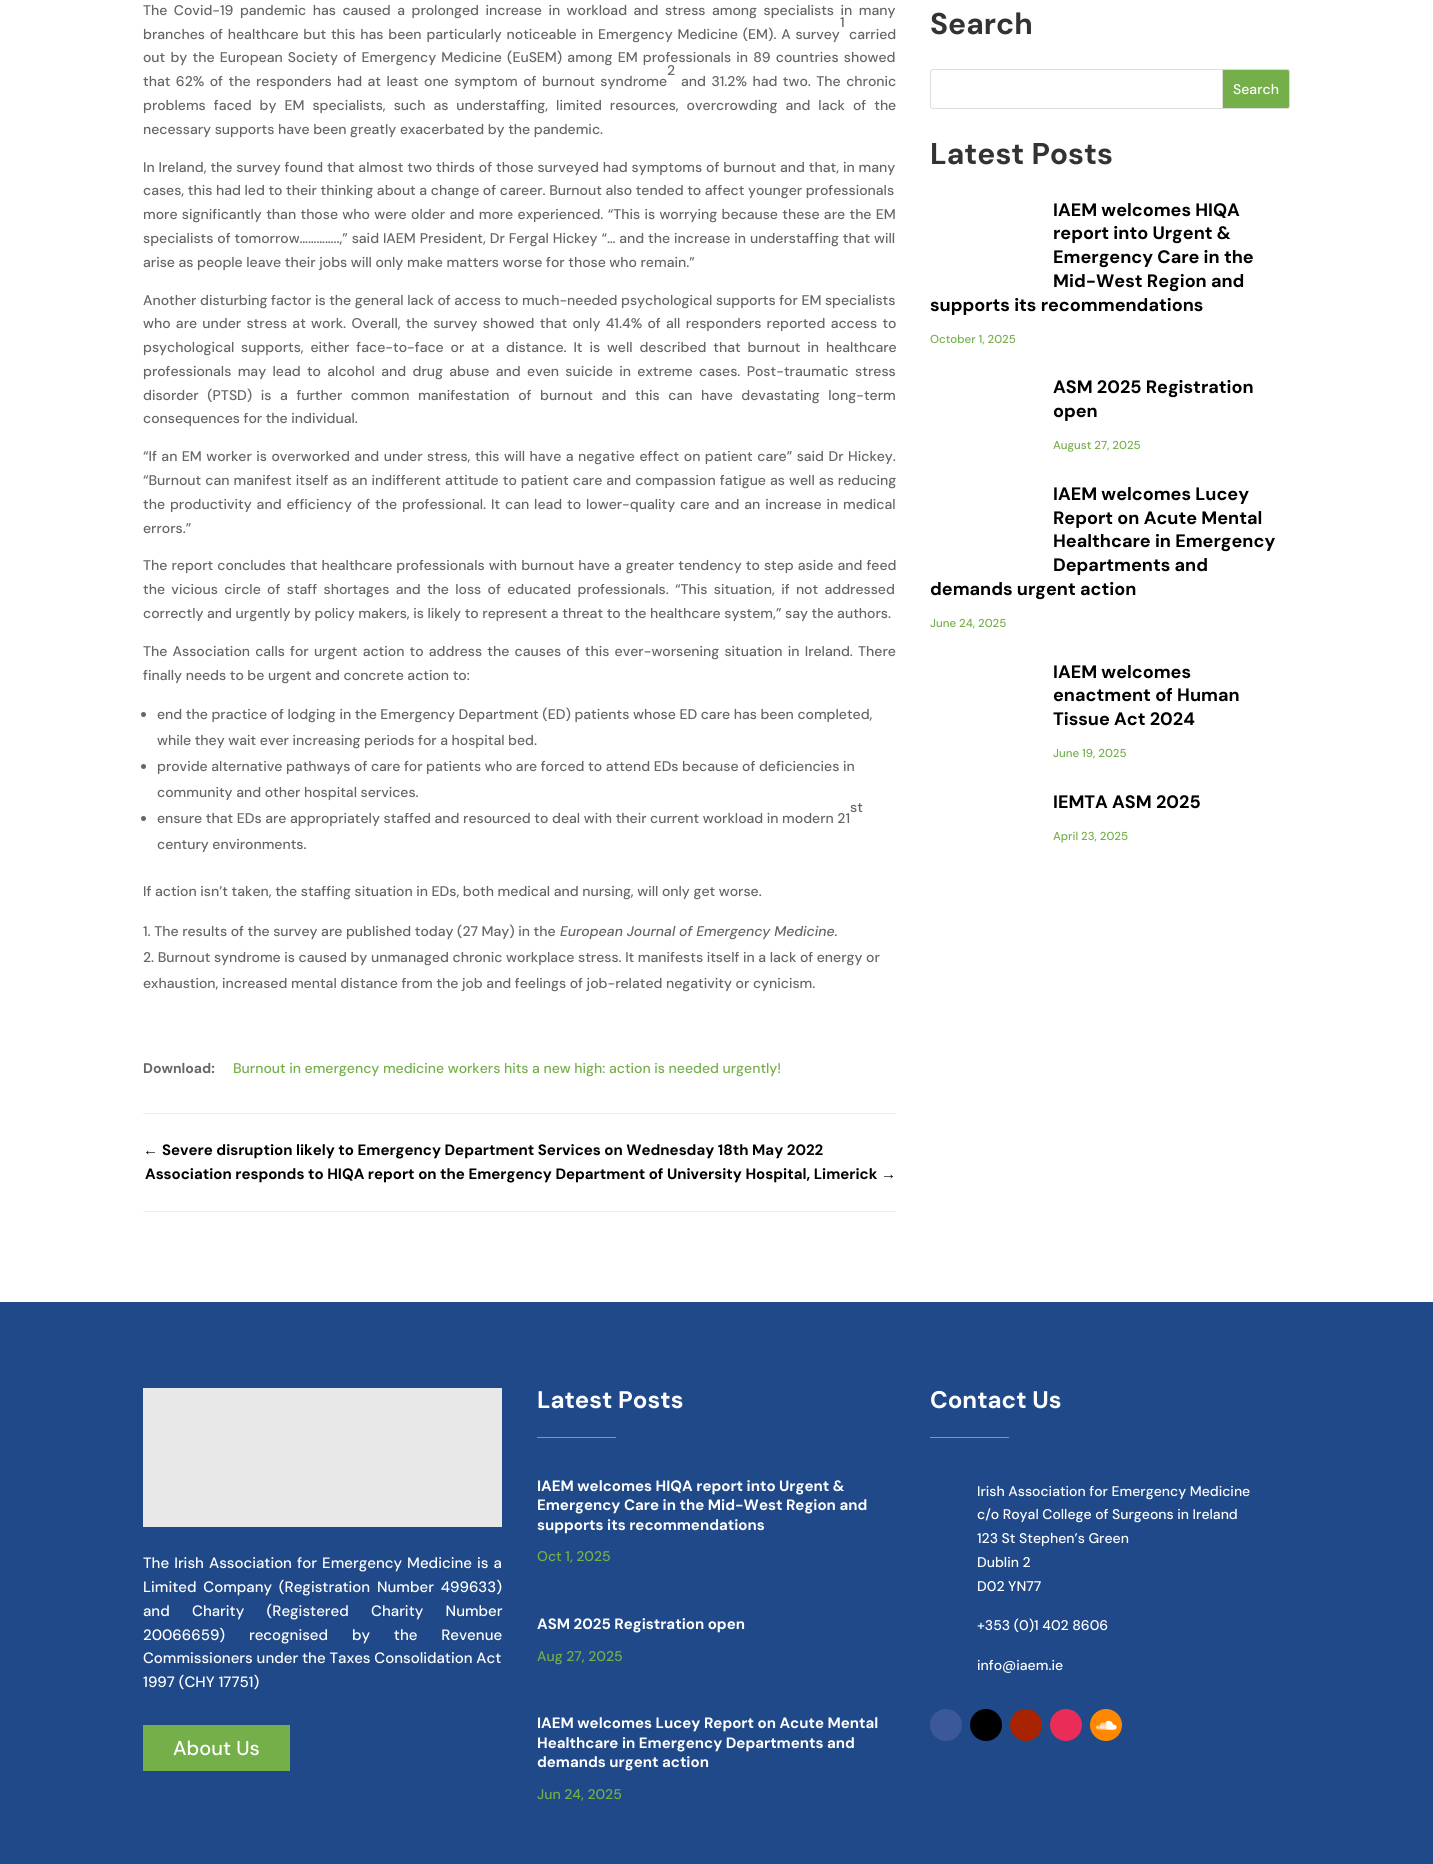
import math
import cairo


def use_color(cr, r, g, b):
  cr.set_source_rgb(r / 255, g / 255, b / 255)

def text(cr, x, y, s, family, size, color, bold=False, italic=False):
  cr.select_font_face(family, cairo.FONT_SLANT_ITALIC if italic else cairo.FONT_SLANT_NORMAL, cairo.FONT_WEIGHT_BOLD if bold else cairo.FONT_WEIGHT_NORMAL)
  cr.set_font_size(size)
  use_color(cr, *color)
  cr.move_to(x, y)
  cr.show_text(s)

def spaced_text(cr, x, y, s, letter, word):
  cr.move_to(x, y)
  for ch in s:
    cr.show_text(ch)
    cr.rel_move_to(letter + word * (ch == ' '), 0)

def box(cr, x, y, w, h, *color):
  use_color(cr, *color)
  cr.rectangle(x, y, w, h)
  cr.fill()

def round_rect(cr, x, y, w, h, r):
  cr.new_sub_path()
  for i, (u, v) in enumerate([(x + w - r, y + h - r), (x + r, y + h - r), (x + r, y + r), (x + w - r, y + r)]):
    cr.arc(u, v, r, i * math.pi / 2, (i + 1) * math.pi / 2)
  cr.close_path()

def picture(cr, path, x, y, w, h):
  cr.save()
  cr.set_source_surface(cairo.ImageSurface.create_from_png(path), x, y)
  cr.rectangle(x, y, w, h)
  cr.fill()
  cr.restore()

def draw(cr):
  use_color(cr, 32, 73, 137)
  cr.paint()
  box(cr, 0, 0, 1433, 1302, 255, 255, 255)
  use_color(cr, 102, 102, 102)
  cr.arc(143.5, 714.5, 2.5, 0, 2 * math.pi)
  cr.fill()
  cr.arc(143.5, 766.5, 2.5, 0, 2 * math.pi)
  cr.fill()
  cr.arc(143.5, 818.5, 2.5, 0, 2 * math.pi)
  cr.fill()
  box(cr, 143, 1113, 753, 1, 238, 238, 238)
  box(cr, 143, 1211, 753, 1, 238, 238, 238)
  round_rect(cr, 930.5, 69.5, 359, 39, 2.5)
  use_color(cr, 221, 221, 221)
  cr.set_line_width(1)
  cr.stroke()
  use_color(cr, 116, 175, 73)
  cr.new_path()
  cr.move_to(1222.5, 69.5)
  cr.line_to(1287, 69.5)
  cr.curve_to(1288.5, 69.5, 1289.5, 70.5, 1289.5, 72)
  cr.line_to(1289.5, 106)
  cr.curve_to(1289.5, 107.5, 1288.5, 108.5, 1287, 108.5)
  cr.line_to(1222.5, 108.5)
  cr.close_path()
  cr.fill_preserve()
  use_color(cr, 221, 221, 221)
  cr.stroke()
  box(cr, 143, 1388, 359, 139, 232, 232, 232)
  box(cr, 143, 1725, 147, 46, 116, 175, 73)
  box(cr, 537, 1437, 79, 1, 116, 175, 73)
  box(cr, 930, 1437, 79, 1, 116, 175, 73)
  use_color(cr, 59, 89, 152)
  cr.arc(946, 1725, 16, 0, 2 * math.pi)
  cr.fill()
  use_color(cr, 0, 0, 0)
  cr.arc(986, 1725, 16, 0, 2 * math.pi)
  cr.fill()
  use_color(cr, 168, 36, 0)
  cr.arc(1026, 1725, 16, 0, 2 * math.pi)
  cr.fill()
  use_color(cr, 234, 44, 89)
  cr.arc(1066, 1725, 16, 0, 2 * math.pi)
  cr.fill()
  use_color(cr, 255, 136, 0)
  cr.arc(1106, 1725, 16, 0, 2 * math.pi)
  cr.fill()
  picture(cr, "img_01.png", 1096, 1720, 21, 10)
  cr.select_font_face("DM Sans Medium")
  cr.set_font_size(14)
  use_color(cr, 102, 102, 102)
  spaced_text(cr, 143, 15, "The Covid-19 pandemic has caused a prolonged increase in workload and stress among specialists in many", 0, 2.9)
  text(cr, 840, 27, "1", "DM Sans Medium", 14, (102, 102, 102))
  spaced_text(cr, 143, 39, "branches of healthcare but this has been particularly noticeable in Emergency Medicine (EM). A survey", 0, 1.2)
  text(cr, 849, 39, "carried", "DM Sans Medium", 14, (102, 102, 102))
  spaced_text(cr, 143, 62, "out by the European Society of Emergency Medicine (EuSEM) among EM professionals in 89 countries showed", 0, 1.6)
  text(cr, 667, 75, "2", "DM Sans Medium", 14, (102, 102, 102))
  spaced_text(cr, 143, 86, "that 62% of the responders had at least one symptom of burnout syndrome", 0, 1.9)
  spaced_text(cr, 681, 86, "and 31.2% had two. The chronic", 0, 1.9)
  spaced_text(cr, 143, 110, "problems faced by EM specialists, such as understaffing, limited resources, overcrowding and lack of the", 0, 4.4)
  text(cr, 143, 134, "necessary supports have been greatly exacerbated by the pandemic.", "DM Sans Medium", 14, (102, 102, 102))
  spaced_text(cr, 143, 172, "In Ireland, the survey found that almost two thirds of those surveyed had symptoms of burnout and that, in many", 0, 0.3)
  text(cr, 143, 195, "cases, this had led to their thinking about a change of career. Burnout also tended to affect younger professionals", "DM Sans Medium", 14, (102, 102, 102))
  spaced_text(cr, 143, 219, "more significantly than those who were older and more experienced. “This is worrying because these are the EM", 0, 0.75)
  spaced_text(cr, 143, 243, "specialists of tomorrow…………..,” said IAEM President, Dr Fergal Hickey “… and the increase in understaffing that will", 0, 0.3)
  text(cr, 143, 267, "arise as people leave their jobs will only make matters worse for those who remain.”", "DM Sans Medium", 14, (102, 102, 102))
  text(cr, 143, 305, "Another disturbing factor is the general lack of access to much-needed psychological supports for EM specialists", "DM Sans Medium", 14, (102, 102, 102))
  spaced_text(cr, 143, 328, "who are under stress at work. Overall, the survey showed that only 41.4% of all responders reported access to", 0, 1.7)
  spaced_text(cr, 143, 352, "psychological supports, either face-to-face or at a distance. It is well described that burnout in healthcare", 0, 3.25)
  spaced_text(cr, 143, 376, "professionals may lead to alcohol and drug abuse and even suicide in extreme cases. Post-traumatic stress", 0, 2.75)
  spaced_text(cr, 143, 400, "disorder (PTSD) is a further common manifestation of burnout and this can have devastating long-term", 0, 5)
  text(cr, 143, 423, "consequences for the individual.", "DM Sans Medium", 14, (102, 102, 102))
  spaced_text(cr, 143, 461, "“If an EM worker is overworked and under stress, this will have a negative effect on patient care” said Dr Hickey.", 0, 0.9)
  spaced_text(cr, 143, 485, "“Burnout can manifest itself as an indifferent attitude to patient care and compassion fatigue as well as reducing", 0, 0.5)
  spaced_text(cr, 143, 509, "the productivity and efficiency of the professional. It can lead to lower-quality care and an increase in medical", 0, 1.3)
  text(cr, 143, 533, "errors.”", "DM Sans Medium", 14, (102, 102, 102))
  spaced_text(cr, 143, 570, "The report concludes that healthcare professionals with burnout have a greater tendency to step aside and feed", 0, 0.5)
  spaced_text(cr, 143, 594, "the vicious circle of staff shortages and the loss of educated professionals. “This situation, if not addressed", 0, 2.75)
  text(cr, 143, 618, "correctly and urgently by policy makers, is likely to represent a threat to the healthcare system,” say the authors.", "DM Sans Medium", 14, (102, 102, 102))
  spaced_text(cr, 143, 656, "The Association calls for urgent action to address the causes of this ever-worsening situation in Ireland. There", 0, 1.6)
  text(cr, 143, 680, "finally needs to be urgent and concrete action to:", "DM Sans Medium", 14, (102, 102, 102))
  text(cr, 157, 719, "end the practice of lodging in the Emergency Department (ED) patients whose ED care has been completed,", "DM Sans Medium", 14, (102, 102, 102))
  text(cr, 157, 745, "while they wait ever increasing periods for a hospital bed.", "DM Sans Medium", 14, (102, 102, 102))
  text(cr, 157, 771, "provide alternative pathways of care for patients who are forced to attend EDs because of deficiencies in", "DM Sans Medium", 14, (102, 102, 102))
  text(cr, 157, 797, "community and other hospital services.", "DM Sans Medium", 14, (102, 102, 102))
  text(cr, 850, 812, "st", "DM Sans Medium", 14, (102, 102, 102))
  text(cr, 157, 823, "ensure that EDs are appropriately staffed and resourced to deal with their current workload in modern 21", "DM Sans Medium", 14, (102, 102, 102))
  text(cr, 157, 849, "century environments.", "DM Sans Medium", 14, (102, 102, 102))
  text(cr, 143, 896, "If action isn’t taken, the staffing situation in EDs, both medical and nursing, will only get worse.", "DM Sans Medium", 14, (102, 102, 102))
  text(cr, 143, 936, "1. The results of the survey are published today (27 May) in the", "DM Sans Medium", 14, (102, 102, 102))
  text(cr, 560, 936, "European Journal of Emergency Medicine.", "DM Sans Medium", 14, (102, 102, 102), italic=True)
  text(cr, 143, 962, "2. Burnout syndrome is caused by unmanaged chronic workplace stress. It manifests itself in a lack of energy or", "DM Sans Medium", 14, (102, 102, 102))
  text(cr, 143, 988, "exhaustion, increased mental distance from the job and feelings of job-related negativity or cynicism.", "DM Sans Medium", 14, (102, 102, 102))
  text(cr, 143, 1073, "Download:", "DM Sans", 14, (102, 102, 102), bold=True)
  text(cr, 233, 1073, "Burnout in emergency medicine workers hits a new high: action is needed urgently!", "DM Sans Medium", 14, (116, 175, 73))
  text(cr, 143, 1155, "←", "Liberation Sans", 15, (0, 0, 0), bold=True)
  text(cr, 162, 1155, "Severe disruption likely to Emergency Department Services on Wednesday 18th May 2022", "DM Sans", 15, (0, 0, 0), bold=True)
  text(cr, 145, 1179, "Association responds to HIQA report on the Emergency Department of University Hospital, Limerick", "DM Sans", 15, (0, 0, 0), bold=True)
  text(cr, 881, 1179, "→", "Liberation Sans", 15, (0, 0, 0), bold=True)
  text(cr, 930, 34, "Search", "DM Sans", 30, (51, 51, 51), bold=True)
  text(cr, 1233, 94, "Search", "DM Sans Medium", 14, (255, 255, 255))
  text(cr, 930, 164, "Latest Posts", "DM Sans", 30, (51, 51, 51), bold=True)
  text(cr, 1053, 216, "IAEM welcomes HIQA", "DM Sans", 18, (0, 0, 0), bold=True)
  text(cr, 1053, 239, "report into Urgent &", "DM Sans", 18, (0, 0, 0), bold=True)
  text(cr, 1053, 263, "Emergency Care in the", "DM Sans", 18, (0, 0, 0), bold=True)
  text(cr, 1053, 287, "Mid-West Region and", "DM Sans", 18, (0, 0, 0), bold=True)
  text(cr, 930, 311, "supports its recommendations", "DM Sans", 18, (0, 0, 0), bold=True)
  text(cr, 930, 343, "October 1, 2025", "DM Sans Medium", 11.5, (116, 175, 73))
  text(cr, 1053, 393, "ASM 2025 Registration", "DM Sans", 18, (0, 0, 0), bold=True)
  text(cr, 1053, 417, "open", "DM Sans", 18, (0, 0, 0), bold=True)
  text(cr, 1053, 449, "August 27, 2025", "DM Sans Medium", 11.5, (116, 175, 73))
  text(cr, 1053, 500, "IAEM welcomes Lucey", "DM Sans", 18, (0, 0, 0), bold=True)
  text(cr, 1053, 524, "Report on Acute Mental", "DM Sans", 18, (0, 0, 0), bold=True)
  text(cr, 1053, 547, "Healthcare in Emergency", "DM Sans", 18, (0, 0, 0), bold=True)
  text(cr, 1053, 571, "Departments and", "DM Sans", 18, (0, 0, 0), bold=True)
  text(cr, 930, 595, "demands urgent action", "DM Sans", 18, (0, 0, 0), bold=True)
  text(cr, 930, 627, "June 24, 2025", "DM Sans Medium", 11.5, (116, 175, 73))
  text(cr, 1053, 678, "IAEM welcomes", "DM Sans", 18, (0, 0, 0), bold=True)
  text(cr, 1053, 701, "enactment of Human", "DM Sans", 18, (0, 0, 0), bold=True)
  text(cr, 1053, 725, "Tissue Act 2024", "DM Sans", 18, (0, 0, 0), bold=True)
  text(cr, 1053, 757, "June 19, 2025", "DM Sans Medium", 11.5, (116, 175, 73))
  text(cr, 1053, 808, "IEMTA ASM 2025", "DM Sans", 18, (0, 0, 0), bold=True)
  text(cr, 1053, 840, "April 23, 2025", "DM Sans Medium", 11.5, (116, 175, 73))
  cr.set_font_size(15)
  use_color(cr, 255, 255, 255)
  spaced_text(cr, 143, 1568, "The Irish Association for Emergency Medicine is a", 0, 1.25)
  spaced_text(cr, 143, 1592, "Limited Company (Registration Number 499633)", 0, 3)
  spaced_text(cr, 143, 1616, "and Charity (Registered Charity Number", 0, 18.5)
  spaced_text(cr, 143, 1640, "20066659) recognised by the Revenue", 0, 20)
  text(cr, 143, 1663, "Commissioners under the Taxes Consolidation Act", "DM Sans Medium", 15, (255, 255, 255))
  text(cr, 143, 1687, "1997 (CHY 17751)", "DM Sans Medium", 15, (255, 255, 255))
  text(cr, 173, 1755, "About Us", "DM Sans Medium", 20, (255, 255, 255))
  text(cr, 537, 1408, "Latest Posts", "DM Sans", 24, (255, 255, 255), bold=True)
  text(cr, 537, 1491, "IAEM welcomes HIQA report into Urgent &", "DM Sans", 15, (255, 255, 255), bold=True)
  text(cr, 537, 1510, "Emergency Care in the Mid-West Region and", "DM Sans", 15, (255, 255, 255), bold=True)
  text(cr, 537, 1530, "supports its recommendations", "DM Sans", 15, (255, 255, 255), bold=True)
  text(cr, 537, 1561, "Oct 1, 2025", "DM Sans Medium", 14, (116, 175, 73))
  text(cr, 537, 1629, "ASM 2025 Registration open", "DM Sans", 15, (255, 255, 255), bold=True)
  text(cr, 537, 1661, "Aug 27, 2025", "DM Sans Medium", 14, (116, 175, 73))
  text(cr, 537, 1728, "IAEM welcomes Lucey Report on Acute Mental", "DM Sans", 15, (255, 255, 255), bold=True)
  text(cr, 537, 1748, "Healthcare in Emergency Departments and", "DM Sans", 15, (255, 255, 255), bold=True)
  text(cr, 537, 1767, "demands urgent action", "DM Sans", 15, (255, 255, 255), bold=True)
  text(cr, 537, 1799, "Jun 24, 2025", "DM Sans Medium", 14, (116, 175, 73))
  text(cr, 930, 1408, "Contact Us", "DM Sans", 24, (255, 255, 255), bold=True)
  text(cr, 977, 1496, "Irish Association for Emergency Medicine", "DM Sans Medium", 14, (255, 255, 255))
  text(cr, 977, 1519, "c/o Royal College of Surgeons in Ireland", "DM Sans Medium", 14, (255, 255, 255))
  text(cr, 977, 1543, "123 St Stephen’s Green", "DM Sans Medium", 14, (255, 255, 255))
  text(cr, 977, 1567, "Dublin 2", "DM Sans Medium", 14, (255, 255, 255))
  text(cr, 977, 1591, "D02 YN77", "DM Sans Medium", 14, (255, 255, 255))
  text(cr, 977, 1630, "+353 (0)1 402 8606", "DM Sans Medium", 14, (255, 255, 255))
  text(cr, 977, 1670, "info@iaem.ie", "DM Sans Medium", 14, (255, 255, 255))


surface = cairo.ImageSurface(cairo.FORMAT_RGB24, 1433, 1864)
cr = cairo.Context(surface)
options = cairo.FontOptions()
options.set_hint_metrics(cairo.HINT_METRICS_OFF)
options.set_hint_style(cairo.HINT_STYLE_NONE)
cr.set_font_options(options)
cr.set_miter_limit(4)
draw(cr)
surface.write_to_png("out.png")
